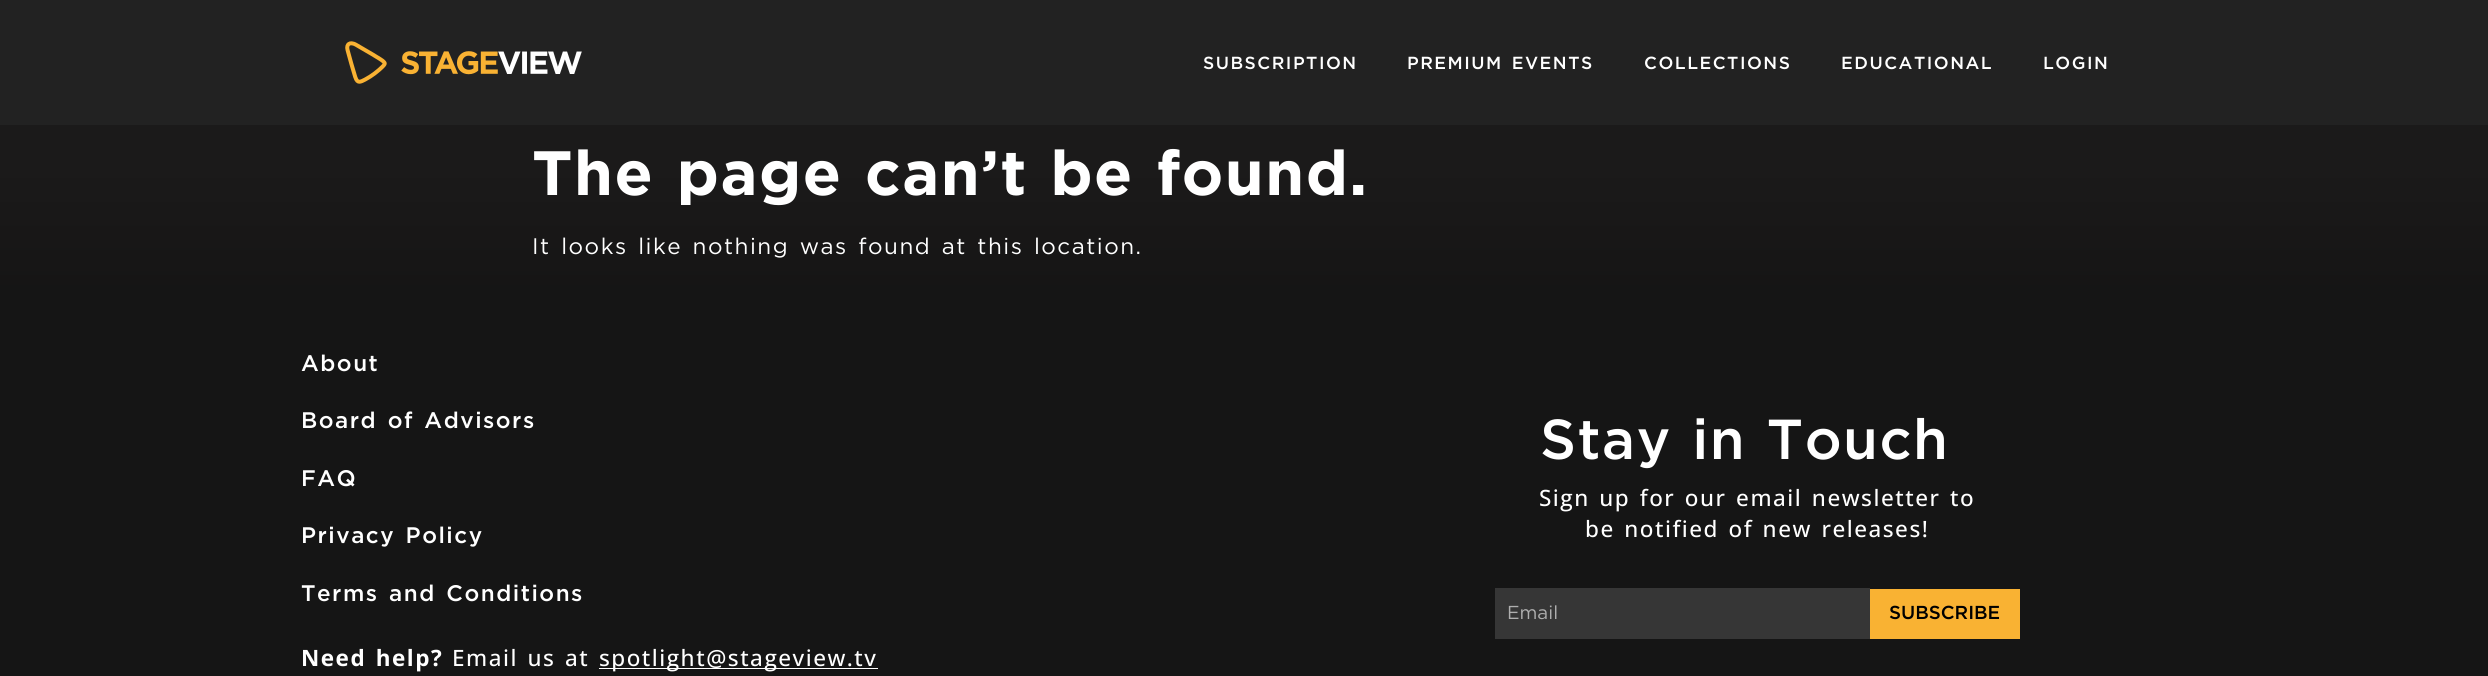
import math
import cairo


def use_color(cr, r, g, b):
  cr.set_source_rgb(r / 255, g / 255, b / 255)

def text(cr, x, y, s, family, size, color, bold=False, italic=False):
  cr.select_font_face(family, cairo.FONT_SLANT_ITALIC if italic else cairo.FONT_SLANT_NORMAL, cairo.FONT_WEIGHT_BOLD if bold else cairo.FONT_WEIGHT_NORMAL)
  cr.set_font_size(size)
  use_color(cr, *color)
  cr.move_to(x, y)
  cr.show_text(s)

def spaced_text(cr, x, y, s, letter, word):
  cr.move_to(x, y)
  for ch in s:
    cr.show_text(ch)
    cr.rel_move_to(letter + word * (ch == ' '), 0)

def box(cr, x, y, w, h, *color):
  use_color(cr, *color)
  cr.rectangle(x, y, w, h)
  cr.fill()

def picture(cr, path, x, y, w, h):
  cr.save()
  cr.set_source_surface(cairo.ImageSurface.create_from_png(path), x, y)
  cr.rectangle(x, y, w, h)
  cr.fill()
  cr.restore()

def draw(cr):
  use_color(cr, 255, 255, 255)
  cr.paint()
  gradient = cairo.LinearGradient(1244, 0, 1244, 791)
  gradient.add_color_stop_rgba(0.21, 0.106, 0.102, 0.102, 1)
  gradient.add_color_stop_rgba(1, 0, 0, 0, 1)
  cr.set_source(gradient)
  cr.rectangle(0, 125, 2488, 160)
  cr.fill()
  box(cr, 0, 0, 2488, 125, 34, 34, 34)
  picture(cr, "img_01.png", 345, 41, 237, 43)
  box(cr, 0, 285, 2488, 391, 21, 21, 21)
  box(cr, 599, 668, 279, 1, 255, 255, 255)
  box(cr, 1495, 588, 375, 51, 54, 54, 54)
  box(cr, 1870, 589, 150, 50, 249, 178, 51)
  cr.select_font_face("Gotham Medium")
  cr.set_font_size(17.5)
  use_color(cr, 255, 255, 255)
  spaced_text(cr, 1203, 69, "SUBSCRIPTION", 1.5, 0)
  spaced_text(cr, 1407, 69, "PREMIUM EVENTS", 1.5, 2.25)
  spaced_text(cr, 1644, 69, "COLLECTIONS", 1.5, 0)
  spaced_text(cr, 1841, 69, "EDUCATIONAL", 1.5, 0)
  spaced_text(cr, 2043, 69, "LOGIN", 1.5, 0)
  cr.select_font_face("Gotham", cairo.FONT_SLANT_NORMAL, cairo.FONT_WEIGHT_BOLD)
  cr.set_font_size(62.5)
  spaced_text(cr, 532, 195, "The page can’t be found.", 1.5, 2.25)
  cr.select_font_face("Gotham")
  cr.set_font_size(22.5)
  spaced_text(cr, 532, 254, "It looks like nothing was found at this location.", 1.5, 2.25)
  cr.select_font_face("Gotham Medium")
  spaced_text(cr, 301, 371, "About", 1.5, 0)
  spaced_text(cr, 301, 428, "Board of Advisors", 1.5, 2.25)
  spaced_text(cr, 301, 486, "FAQ", 1.5, 0)
  spaced_text(cr, 301, 543, "Privacy Policy", 1.5, 2.25)
  spaced_text(cr, 301, 601, "Terms and Conditions", 1.5, 2.25)
  cr.select_font_face("Open Sans", cairo.FONT_SLANT_NORMAL, cairo.FONT_WEIGHT_BOLD)
  spaced_text(cr, 301, 666, "Need help?", 1.5, 2.25)
  cr.select_font_face("Open Sans Medium")
  spaced_text(cr, 452, 666, "Email us at", 1.5, 2.25)
  spaced_text(cr, 599, 666, "spotlight@stageview.tv", 1.5, 0)
  cr.select_font_face("Gotham Medium")
  cr.set_font_size(56.25)
  spaced_text(cr, 1540, 459, "Stay in Touch", 1.5, 2.25)
  cr.select_font_face("Open Sans Medium")
  cr.set_font_size(22.5)
  spaced_text(cr, 1539, 506, "Sign up for our email newsletter to", 1.5, 2.25)
  spaced_text(cr, 1585, 537, "be notified of new releases!", 1.5, 2.25)
  text(cr, 1507, 619, "Email", "Gotham", 18.75, (175, 175, 175))
  text(cr, 1889, 619, "SUBSCRIBE", "Gotham Medium", 18.75, (0, 0, 0))


surface = cairo.ImageSurface(cairo.FORMAT_RGB24, 2488, 676)
cr = cairo.Context(surface)
options = cairo.FontOptions()
options.set_hint_metrics(cairo.HINT_METRICS_OFF)
options.set_hint_style(cairo.HINT_STYLE_NONE)
cr.set_font_options(options)
cr.set_miter_limit(4)
draw(cr)
surface.write_to_png("out.png")
